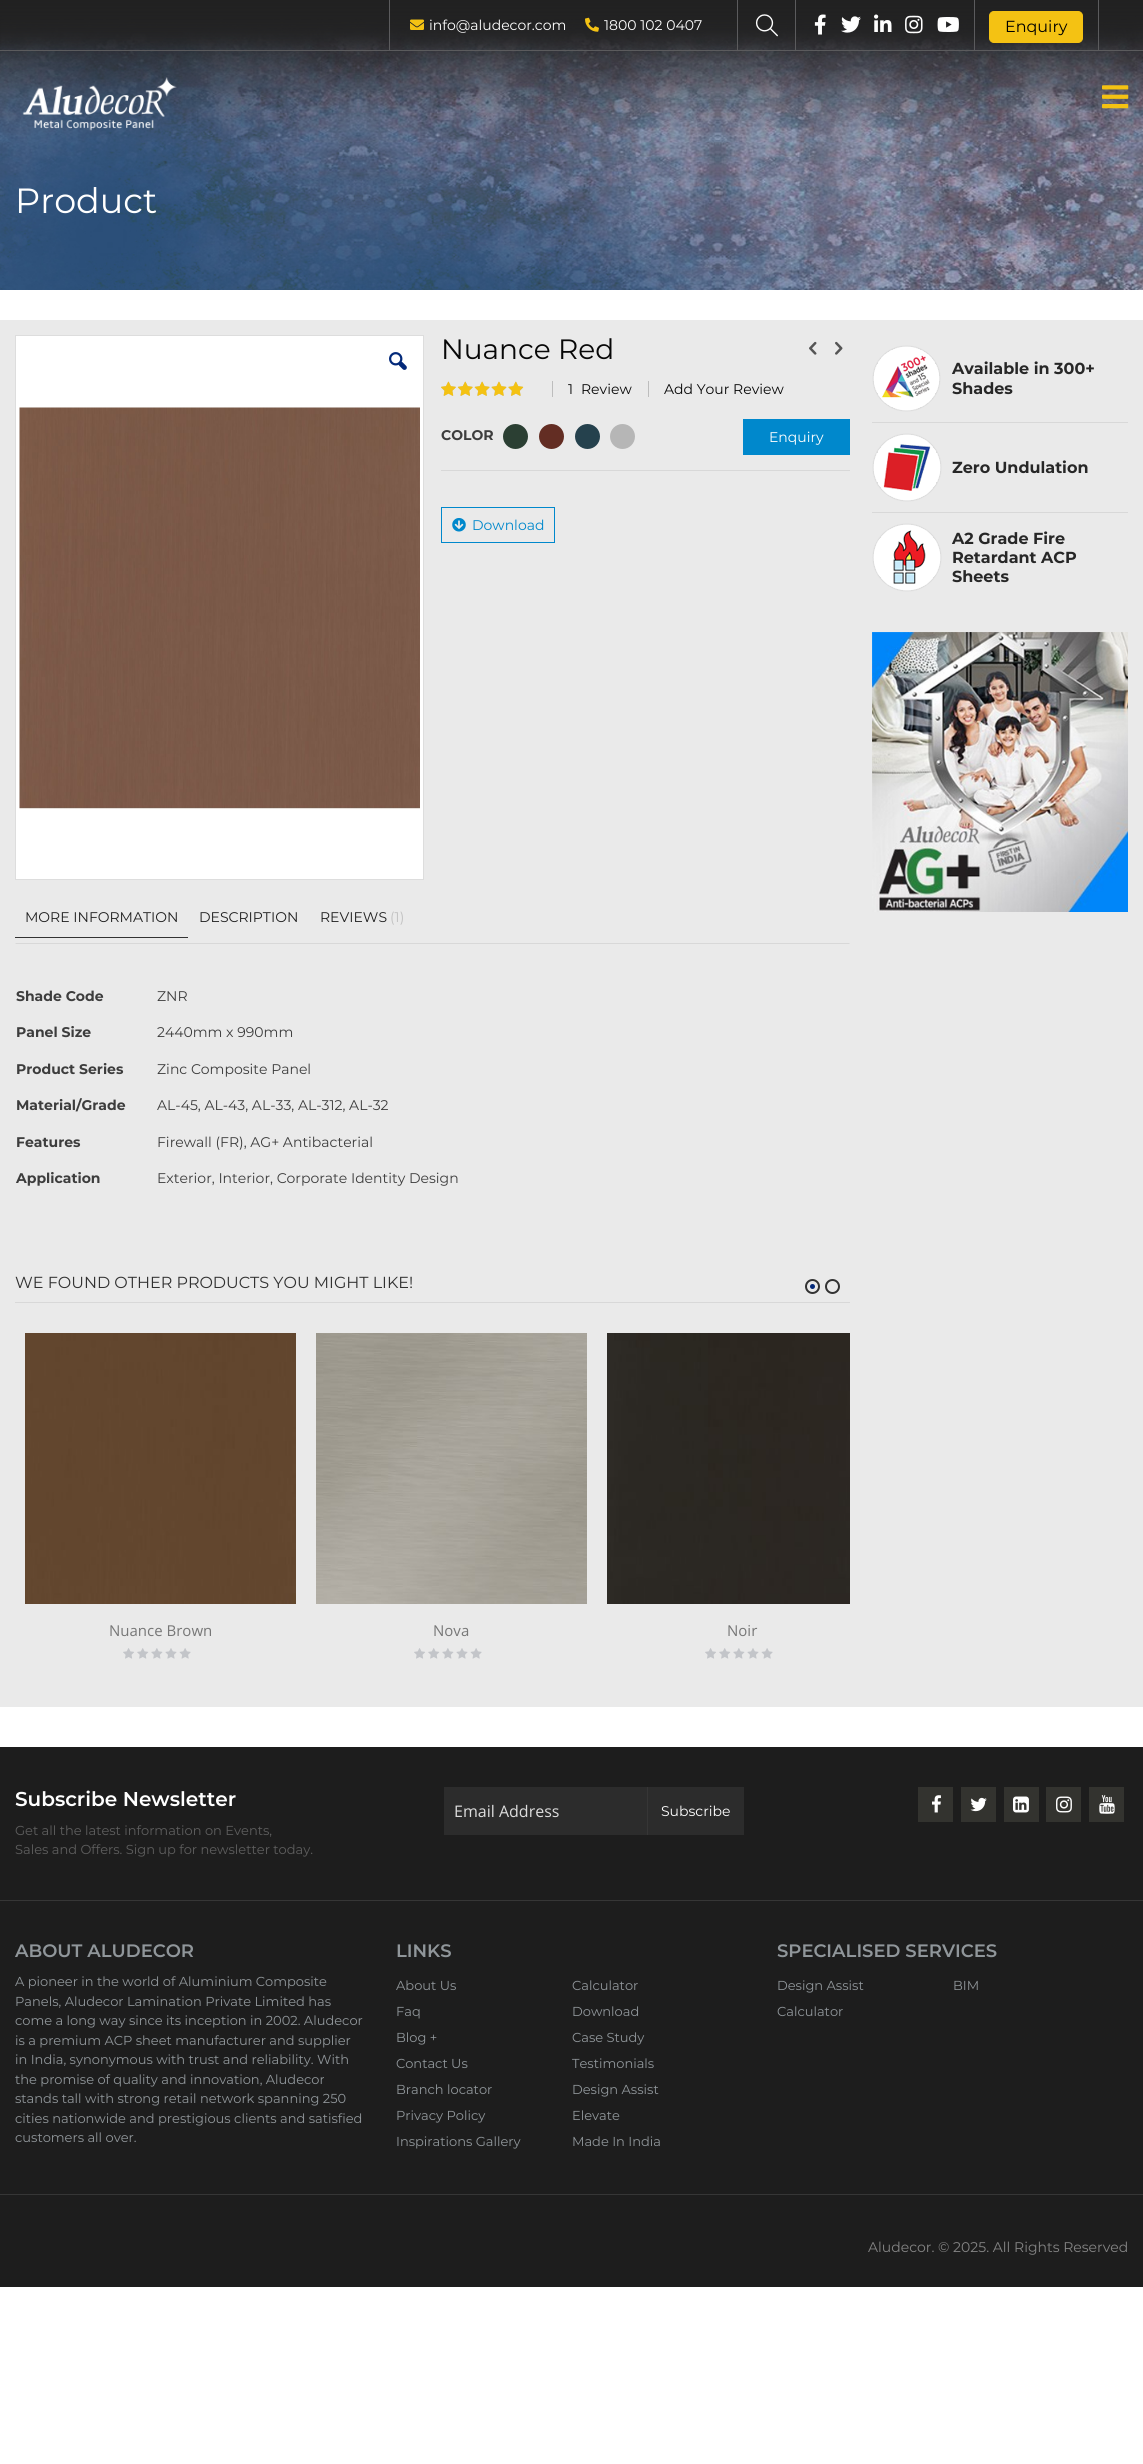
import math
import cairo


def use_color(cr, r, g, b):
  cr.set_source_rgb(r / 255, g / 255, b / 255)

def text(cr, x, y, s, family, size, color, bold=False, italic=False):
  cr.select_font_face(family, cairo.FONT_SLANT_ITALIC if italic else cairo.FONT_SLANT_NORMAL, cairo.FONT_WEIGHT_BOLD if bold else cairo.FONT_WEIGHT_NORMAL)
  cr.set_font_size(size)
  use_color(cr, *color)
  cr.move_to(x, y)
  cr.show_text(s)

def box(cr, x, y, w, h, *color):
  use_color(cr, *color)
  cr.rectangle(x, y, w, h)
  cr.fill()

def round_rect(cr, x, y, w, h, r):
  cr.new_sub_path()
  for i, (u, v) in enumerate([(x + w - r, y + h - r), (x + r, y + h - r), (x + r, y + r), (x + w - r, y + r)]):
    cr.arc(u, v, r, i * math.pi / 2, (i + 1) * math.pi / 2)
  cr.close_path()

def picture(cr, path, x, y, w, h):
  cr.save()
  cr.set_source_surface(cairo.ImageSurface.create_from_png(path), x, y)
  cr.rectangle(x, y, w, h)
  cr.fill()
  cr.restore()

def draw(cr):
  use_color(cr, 255, 255, 255)
  cr.paint()
  picture(cr, "img_11.png", 0, 0, 1143, 290)
  box(cr, 0, 50, 1143, 1, 91, 91, 93)
  box(cr, 737, 0, 1, 50, 91, 91, 93)
  box(cr, 389, 0, 1, 50, 91, 91, 93)
  picture(cr, "img_01.png", 410, 19, 14, 11)
  picture(cr, "img_02.png", 585, 17, 14, 15)
  box(cr, 795, 0, 1, 50, 91, 91, 93)
  picture(cr, "img_03.png", 755, 14, 23, 23)
  box(cr, 1098, 0, 1, 50, 91, 91, 93)
  box(cr, 974, 0, 1, 50, 91, 91, 93)
  picture(cr, "img_04.png", 814, 14, 12, 21)
  picture(cr, "img_05.png", 841, 16, 20, 17)
  picture(cr, "img_06.png", 874, 14, 18, 18)
  picture(cr, "img_07.png", 905, 15, 18, 19)
  picture(cr, "img_08.png", 937, 17, 22, 15)
  use_color(cr, 244, 194, 19)
  round_rect(cr, 989.5, 11.5, 93, 31, 4.5)
  cr.fill_preserve()
  cr.set_line_width(1)
  cr.stroke()
  picture(cr, "img_09.png", 22, 77, 155, 54)
  picture(cr, "img_10.png", 1102, 85, 27, 24)
  box(cr, 0, 320, 1143, 1387, 234, 234, 234)
  use_color(cr, 255, 255, 255)
  cr.rectangle(15.5, 335.5, 408, 544)
  cr.fill_preserve()
  use_color(cr, 221, 221, 221)
  cr.stroke()
  picture(cr, "img_12.png", 389, 352, 18, 18)
  picture(cr, "img_13.png", 19, 407, 401, 402)
  picture(cr, "img_14.png", 809, 341, 8, 14)
  picture(cr, "img_15.png", 835, 341, 8, 14)
  picture(cr, "img_16.png", 441, 381, 82, 15)
  picture(cr, "img_17.png", 441, 381, 83, 15)
  box(cr, 552, 381, 1, 16, 189, 189, 189)
  box(cr, 648, 381, 1, 16, 189, 189, 189)
  box(cr, 441, 470, 409, 1, 216, 216, 216)
  use_color(cr, 43, 63, 51)
  cr.arc(515.5, 436.5, 12.5, 0, 2 * math.pi)
  cr.fill()
  use_color(cr, 99, 45, 35)
  cr.arc(551.5, 436.5, 12.5, 0, 2 * math.pi)
  cr.fill()
  use_color(cr, 37, 65, 77)
  cr.arc(587.5, 436.5, 12.5, 0, 2 * math.pi)
  cr.fill()
  use_color(cr, 182, 182, 182)
  cr.arc(622.5, 436.5, 12.5, 0, 2 * math.pi)
  cr.fill()
  box(cr, 743, 419, 107, 36, 0, 136, 204)
  cr.rectangle(441.5, 507.5, 113, 35)
  cr.stroke()
  picture(cr, "img_18.png", 452, 518, 14, 14)
  box(cr, 15, 937, 173, 1, 51, 51, 51)
  use_color(cr, 216, 216, 216)
  cr.new_path()
  cr.move_to(15, 943)
  cr.line_to(850, 943)
  cr.line_to(849, 944)
  cr.line_to(16, 944)
  cr.close_path()
  cr.fill()
  box(cr, 15, 1302, 835, 1, 216, 216, 216)
  cr.arc(812.5, 1286.5, 6.5, 0, 2 * math.pi)
  use_color(cr, 51, 51, 51)
  cr.set_line_width(2)
  cr.stroke()
  use_color(cr, 3, 41, 122)
  cr.arc(812.5, 1286.5, 2.5, 0, 2 * math.pi)
  cr.fill()
  cr.arc(832.5, 1286.5, 6.5, 0, 2 * math.pi)
  use_color(cr, 51, 51, 51)
  cr.stroke()
  picture(cr, "img_19.png", 25, 1333, 271, 271)
  picture(cr, "img_20.png", 123, 1648, 68, 11)
  picture(cr, "img_21.png", 316, 1333, 271, 271)
  picture(cr, "img_20.png", 414, 1648, 68, 11)
  picture(cr, "img_22.png", 607, 1333, 243, 271)
  picture(cr, "img_20.png", 705, 1648, 68, 11)
  box(cr, 872, 422, 256, 1, 216, 216, 216)
  picture(cr, "img_23.png", 872, 345, 69, 67)
  box(cr, 872, 512, 256, 1, 216, 216, 216)
  picture(cr, "img_24.png", 872, 433, 70, 69)
  picture(cr, "img_25.png", 872, 523, 70, 69)
  picture(cr, "img_26.png", 872, 632, 256, 280)
  box(cr, 0, 1747, 1143, 540, 29, 29, 29)
  box(cr, 444, 1787, 203, 48, 44, 44, 44)
  box(cr, 648, 1787, 96, 48, 44, 44, 44)
  box(cr, 647, 1787, 1, 48, 54, 54, 54)
  box(cr, 918, 1787, 35, 35, 51, 51, 47)
  picture(cr, "img_27.png", 932, 1795, 9, 18)
  box(cr, 961, 1787, 35, 35, 51, 51, 47)
  picture(cr, "img_28.png", 970, 1797, 17, 15)
  box(cr, 1004, 1787, 35, 35, 51, 51, 47)
  picture(cr, "img_29.png", 1013, 1796, 16, 17)
  box(cr, 1046, 1787, 35, 35, 51, 51, 47)
  picture(cr, "img_30.png", 1056, 1796, 16, 17)
  box(cr, 1089, 1787, 35, 35, 51, 51, 47)
  picture(cr, "img_31.png", 1099, 1795, 16, 19)
  box(cr, 0, 1900, 1143, 1, 54, 54, 54)
  box(cr, 0, 2194, 1143, 1, 54, 54, 54)
  text(cr, 429, 30, "info@aludecor.com", "Montserrat", 14, (255, 255, 255))
  text(cr, 604, 30, "1800 102 0407", "Montserrat", 14, (255, 255, 255))
  text(cr, 1005, 32, "Enquiry", "Montserrat", 16, (0, 0, 0))
  text(cr, 15, 213, "Product", "Montserrat", 35, (255, 255, 255))
  text(cr, 441, 359, "Nuance Red", "Montserrat", 28, (8, 8, 8))
  text(cr, 568, 394, "1", "Montserrat", 14, (8, 8, 8))
  text(cr, 581, 394, "Review", "Montserrat", 14, (8, 8, 8))
  text(cr, 664, 394, "Add Your Review", "Montserrat", 14, (8, 8, 8))
  text(cr, 441, 440, "COLOR", "Montserrat", 14, (61, 61, 61), bold=True)
  text(cr, 769, 442, "Enquiry", "Montserrat", 14, (255, 255, 255))
  text(cr, 472, 530, "Download", "Montserrat", 14, (0, 136, 204))
  text(cr, 25, 922, "MORE INFORMATION", "Montserrat", 14, (32, 32, 32))
  text(cr, 199, 922, "DESCRIPTION", "Montserrat", 14, (32, 32, 32))
  text(cr, 320, 922, "REVIEWS", "Montserrat", 14, (32, 32, 32))
  text(cr, 390, 922, "(1)", "Montserrat", 14, (193, 193, 193))
  text(cr, 16, 1001, "Shade Code", "Montserrat", 14, (61, 61, 61), bold=True)
  text(cr, 157, 1001, "ZNR", "Montserrat", 14, (61, 61, 61))
  text(cr, 16, 1037, "Panel Size", "Montserrat", 14, (61, 61, 61), bold=True)
  text(cr, 157, 1037, "2440mm x 990mm", "Montserrat", 14, (61, 61, 61))
  text(cr, 16, 1074, "Product Series", "Montserrat", 14, (61, 61, 61), bold=True)
  text(cr, 157, 1074, "Zinc Composite Panel", "Montserrat", 14, (61, 61, 61))
  text(cr, 16, 1110, "Material/Grade", "Montserrat", 14, (61, 61, 61), bold=True)
  text(cr, 157, 1110, "AL-45, AL-43, AL-33, AL-312, AL-32", "Montserrat", 14, (61, 61, 61))
  text(cr, 16, 1147, "Features", "Montserrat", 14, (61, 61, 61), bold=True)
  text(cr, 157, 1147, "Firewall (FR), AG+ Antibacterial", "Montserrat", 14, (61, 61, 61))
  text(cr, 16, 1183, "Application", "Montserrat", 14, (61, 61, 61), bold=True)
  text(cr, 157, 1183, "Exterior, Interior, Corporate Identity Design", "Montserrat", 14, (61, 61, 61))
  text(cr, 15, 1288, "WE FOUND OTHER PRODUCTS YOU MIGHT LIKE!", "Montserrat", 16, (49, 49, 49))
  text(cr, 109, 1636, "Nuance Brown", "Open Sans", 15, (119, 119, 119))
  text(cr, 433, 1636, "Nova", "Open Sans", 15, (119, 119, 119))
  text(cr, 727, 1636, "Noir", "Open Sans", 15, (119, 119, 119))
  text(cr, 952, 374, "Available in 300+", "Montserrat", 16, (39, 39, 39), bold=True)
  text(cr, 952, 394, "Shades", "Montserrat", 16, (39, 39, 39), bold=True)
  text(cr, 952, 473, "Zero Undulation", "Montserrat", 16, (39, 39, 39), bold=True)
  text(cr, 952, 544, "A2 Grade Fire", "Montserrat", 16, (39, 39, 39), bold=True)
  text(cr, 952, 563, "Retardant ACP", "Montserrat", 16, (39, 39, 39), bold=True)
  text(cr, 952, 582, "Sheets", "Montserrat", 16, (39, 39, 39), bold=True)
  text(cr, 15, 1806, "Subscribe Newsletter", "Montserrat SemiBold", 20, (255, 255, 255))
  text(cr, 15, 1835, "Get all the latest information on Events,", "Montserrat", 13, (94, 94, 94))
  text(cr, 15, 1854, "Sales and Offers. Sign up for newsletter today.", "Montserrat", 13, (94, 94, 94))
  text(cr, 454, 1817, "Email Address", "Open Sans", 16, (221, 221, 221))
  text(cr, 661, 1816, "Subscribe", "Montserrat", 14, (255, 255, 255))
  text(cr, 15, 1957, "ABOUT ALUDECOR", "Montserrat SemiBold", 18, (144, 150, 154))
  text(cr, 15, 1986, "A pioneer in the world of Aluminium Composite", "Montserrat", 13, (144, 150, 154))
  text(cr, 15, 2006, "Panels, Aludecor Lamination Private Limited has", "Montserrat", 13, (144, 150, 154))
  text(cr, 15, 2025, "come a long way since its inception in 2002. Aludecor", "Montserrat", 13, (144, 150, 154))
  text(cr, 15, 2045, "is a premium ACP sheet manufacturer and supplier", "Montserrat", 13, (144, 150, 154))
  text(cr, 15, 2064, "in India, synonymous with trust and reliability. With", "Montserrat", 13, (144, 150, 154))
  text(cr, 15, 2084, "the promise of quality and innovation, Aludecor", "Montserrat", 13, (144, 150, 154))
  text(cr, 15, 2103, "stands tall with strong retail network spanning 250", "Montserrat", 13, (144, 150, 154))
  text(cr, 15, 2123, "cities nationwide and prestigious clients and satisfied", "Montserrat", 13, (144, 150, 154))
  text(cr, 15, 2142, "customers all over.", "Montserrat", 13, (144, 150, 154))
  text(cr, 396, 1957, "LINKS", "Montserrat SemiBold", 18, (144, 150, 154))
  text(cr, 396, 1990, "About Us", "Montserrat", 13, (144, 150, 154))
  text(cr, 572, 1990, "Calculator", "Montserrat", 13, (144, 150, 154))
  text(cr, 396, 2016, "Faq", "Montserrat", 13, (144, 150, 154))
  text(cr, 572, 2016, "Download", "Montserrat", 13, (144, 150, 154))
  text(cr, 396, 2042, "Blog +", "Montserrat", 13, (144, 150, 154))
  text(cr, 572, 2042, "Case Study", "Montserrat", 13, (144, 150, 154))
  text(cr, 396, 2068, "Contact Us", "Montserrat", 13, (144, 150, 154))
  text(cr, 572, 2068, "Testimonials", "Montserrat", 13, (144, 150, 154))
  text(cr, 396, 2094, "Branch locator", "Montserrat", 13, (144, 150, 154))
  text(cr, 572, 2094, "Design Assist", "Montserrat", 13, (144, 150, 154))
  text(cr, 396, 2120, "Privacy Policy", "Montserrat", 13, (144, 150, 154))
  text(cr, 572, 2120, "Elevate", "Montserrat", 13, (144, 150, 154))
  text(cr, 396, 2146, "Inspirations Gallery", "Montserrat", 13, (144, 150, 154))
  text(cr, 572, 2146, "Made In India", "Montserrat", 13, (144, 150, 154))
  text(cr, 777, 1957, "SPECIALISED SERVICES", "Montserrat SemiBold", 18, (144, 150, 154))
  text(cr, 777, 1990, "Design Assist", "Montserrat", 13, (144, 150, 154))
  text(cr, 953, 1990, "BIM", "Montserrat", 13, (144, 150, 154))
  text(cr, 777, 2016, "Calculator", "Montserrat", 13, (144, 150, 154))
  text(cr, 868, 2252, "Aludecor. © 2025. All Rights Reserved", "Montserrat", 14, (132, 132, 132))


surface = cairo.ImageSurface(cairo.FORMAT_RGB24, 1143, 2464)
cr = cairo.Context(surface)
options = cairo.FontOptions()
options.set_hint_metrics(cairo.HINT_METRICS_OFF)
options.set_hint_style(cairo.HINT_STYLE_NONE)
cr.set_font_options(options)
cr.set_miter_limit(4)
draw(cr)
surface.write_to_png("out.png")
